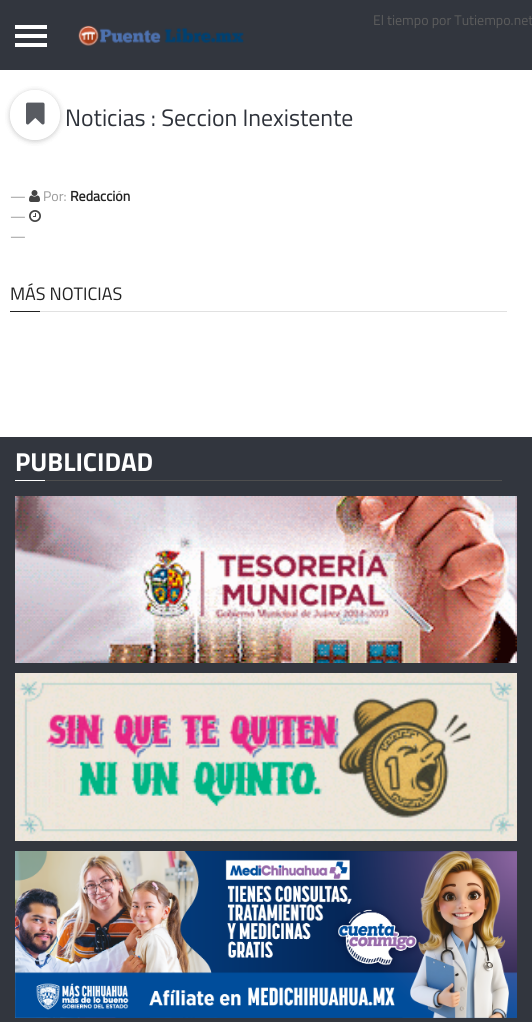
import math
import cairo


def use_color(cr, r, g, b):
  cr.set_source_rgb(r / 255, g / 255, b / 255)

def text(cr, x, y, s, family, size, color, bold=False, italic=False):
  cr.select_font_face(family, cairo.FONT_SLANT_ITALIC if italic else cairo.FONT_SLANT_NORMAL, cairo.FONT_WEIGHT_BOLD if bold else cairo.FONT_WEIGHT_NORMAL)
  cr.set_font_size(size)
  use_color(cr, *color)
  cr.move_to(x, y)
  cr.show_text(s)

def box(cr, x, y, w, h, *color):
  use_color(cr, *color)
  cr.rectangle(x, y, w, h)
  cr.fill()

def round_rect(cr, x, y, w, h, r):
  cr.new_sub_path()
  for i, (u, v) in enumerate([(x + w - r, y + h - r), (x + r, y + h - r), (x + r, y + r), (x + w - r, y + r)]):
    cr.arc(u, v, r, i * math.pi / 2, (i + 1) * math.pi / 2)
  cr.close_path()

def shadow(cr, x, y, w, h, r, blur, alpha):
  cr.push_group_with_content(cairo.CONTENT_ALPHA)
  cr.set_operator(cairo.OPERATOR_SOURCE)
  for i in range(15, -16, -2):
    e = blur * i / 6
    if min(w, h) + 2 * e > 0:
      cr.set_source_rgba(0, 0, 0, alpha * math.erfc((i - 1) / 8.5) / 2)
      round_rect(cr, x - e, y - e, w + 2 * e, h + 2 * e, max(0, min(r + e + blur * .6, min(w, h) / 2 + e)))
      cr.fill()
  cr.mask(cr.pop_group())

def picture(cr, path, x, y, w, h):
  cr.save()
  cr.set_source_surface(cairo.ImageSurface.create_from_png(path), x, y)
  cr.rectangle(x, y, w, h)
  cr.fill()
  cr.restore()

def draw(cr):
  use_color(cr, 255, 255, 255)
  cr.paint()
  box(cr, 0, 0, 532, 70, 50, 54, 62)
  picture(cr, "img_01.png", 78, 25, 166, 21)
  box(cr, 15, 25, 32, 4, 255, 255, 255)
  box(cr, 15, 34, 32, 4, 255, 255, 255)
  box(cr, 15, 43, 32, 4, 255, 255, 255)
  cr.save()
  cr.set_fill_rule(cairo.FILL_RULE_EVEN_ODD)
  cr.new_path()
  cr.move_to(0, 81)
  cr.line_to(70, 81)
  cr.line_to(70, 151)
  cr.line_to(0, 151)
  cr.close_path()
  cr.move_to(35, 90)
  cr.curve_to(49, 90, 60, 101, 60, 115)
  cr.curve_to(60, 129, 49, 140, 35, 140)
  cr.curve_to(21, 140, 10, 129, 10, 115)
  cr.curve_to(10, 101, 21, 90, 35, 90)
  cr.close_path()
  cr.clip()
  use_color(cr, 0, 0, 0)
  shadow(cr, 10, 91, 50, 50, 25, 3, 0.12)
  shadow(cr, 10, 91, 50, 50, 25, 3, 0.12)
  cr.restore()
  cr.set_source_rgba(1, 1, 1, 0.5)
  cr.arc(35, 115, 25, 0, 2 * math.pi)
  cr.fill()
  picture(cr, "img_02.png", 26, 102, 19, 23)
  picture(cr, "img_03.png", 29, 190, 11, 12)
  picture(cr, "img_04.png", 29, 210, 12, 12)
  box(cr, 40, 311, 467, 1, 225, 225, 225)
  box(cr, 10, 311, 30, 1, 34, 34, 34)
  box(cr, 0, 437, 532, 585, 50, 54, 62)
  box(cr, 45, 480, 457, 1, 78, 78, 78)
  box(cr, 15, 480, 30, 1, 255, 255, 255)
  picture(cr, "img_05.png", 15, 496, 502, 167)
  picture(cr, "img_06.png", 15, 673, 502, 168)
  picture(cr, "img_07.png", 15, 851, 502, 167)
  text(cr, 373, 25, "El tiempo por Tutiempo.net", "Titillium", 14, (92, 92, 92))
  text(cr, 65, 126, "Noticias : Seccion Inexistente", "Titillium", 23.75, (46, 50, 58))
  text(cr, 10, 201, "—", "Titillium", 14, (153, 153, 153))
  text(cr, 43, 201, "Por:", "Titillium", 14, (153, 153, 153))
  text(cr, 70, 201, "Redacción", "Titillium", 14, (34, 34, 34), bold=True)
  text(cr, 10, 221, "—", "Titillium", 14, (153, 153, 153))
  text(cr, 10, 241, "—", "Titillium", 14, (153, 153, 153))
  text(cr, 10, 300, "MÁS NOTICIAS", "Titillium", 18, (34, 34, 34))
  text(cr, 15, 471, "PUBLICIDAD", "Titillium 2", 26, (255, 255, 255), bold=True)


surface = cairo.ImageSurface(cairo.FORMAT_RGB24, 532, 1022)
cr = cairo.Context(surface)
options = cairo.FontOptions()
options.set_hint_metrics(cairo.HINT_METRICS_OFF)
options.set_hint_style(cairo.HINT_STYLE_NONE)
cr.set_font_options(options)
cr.set_miter_limit(4)
draw(cr)
surface.write_to_png("out.png")
